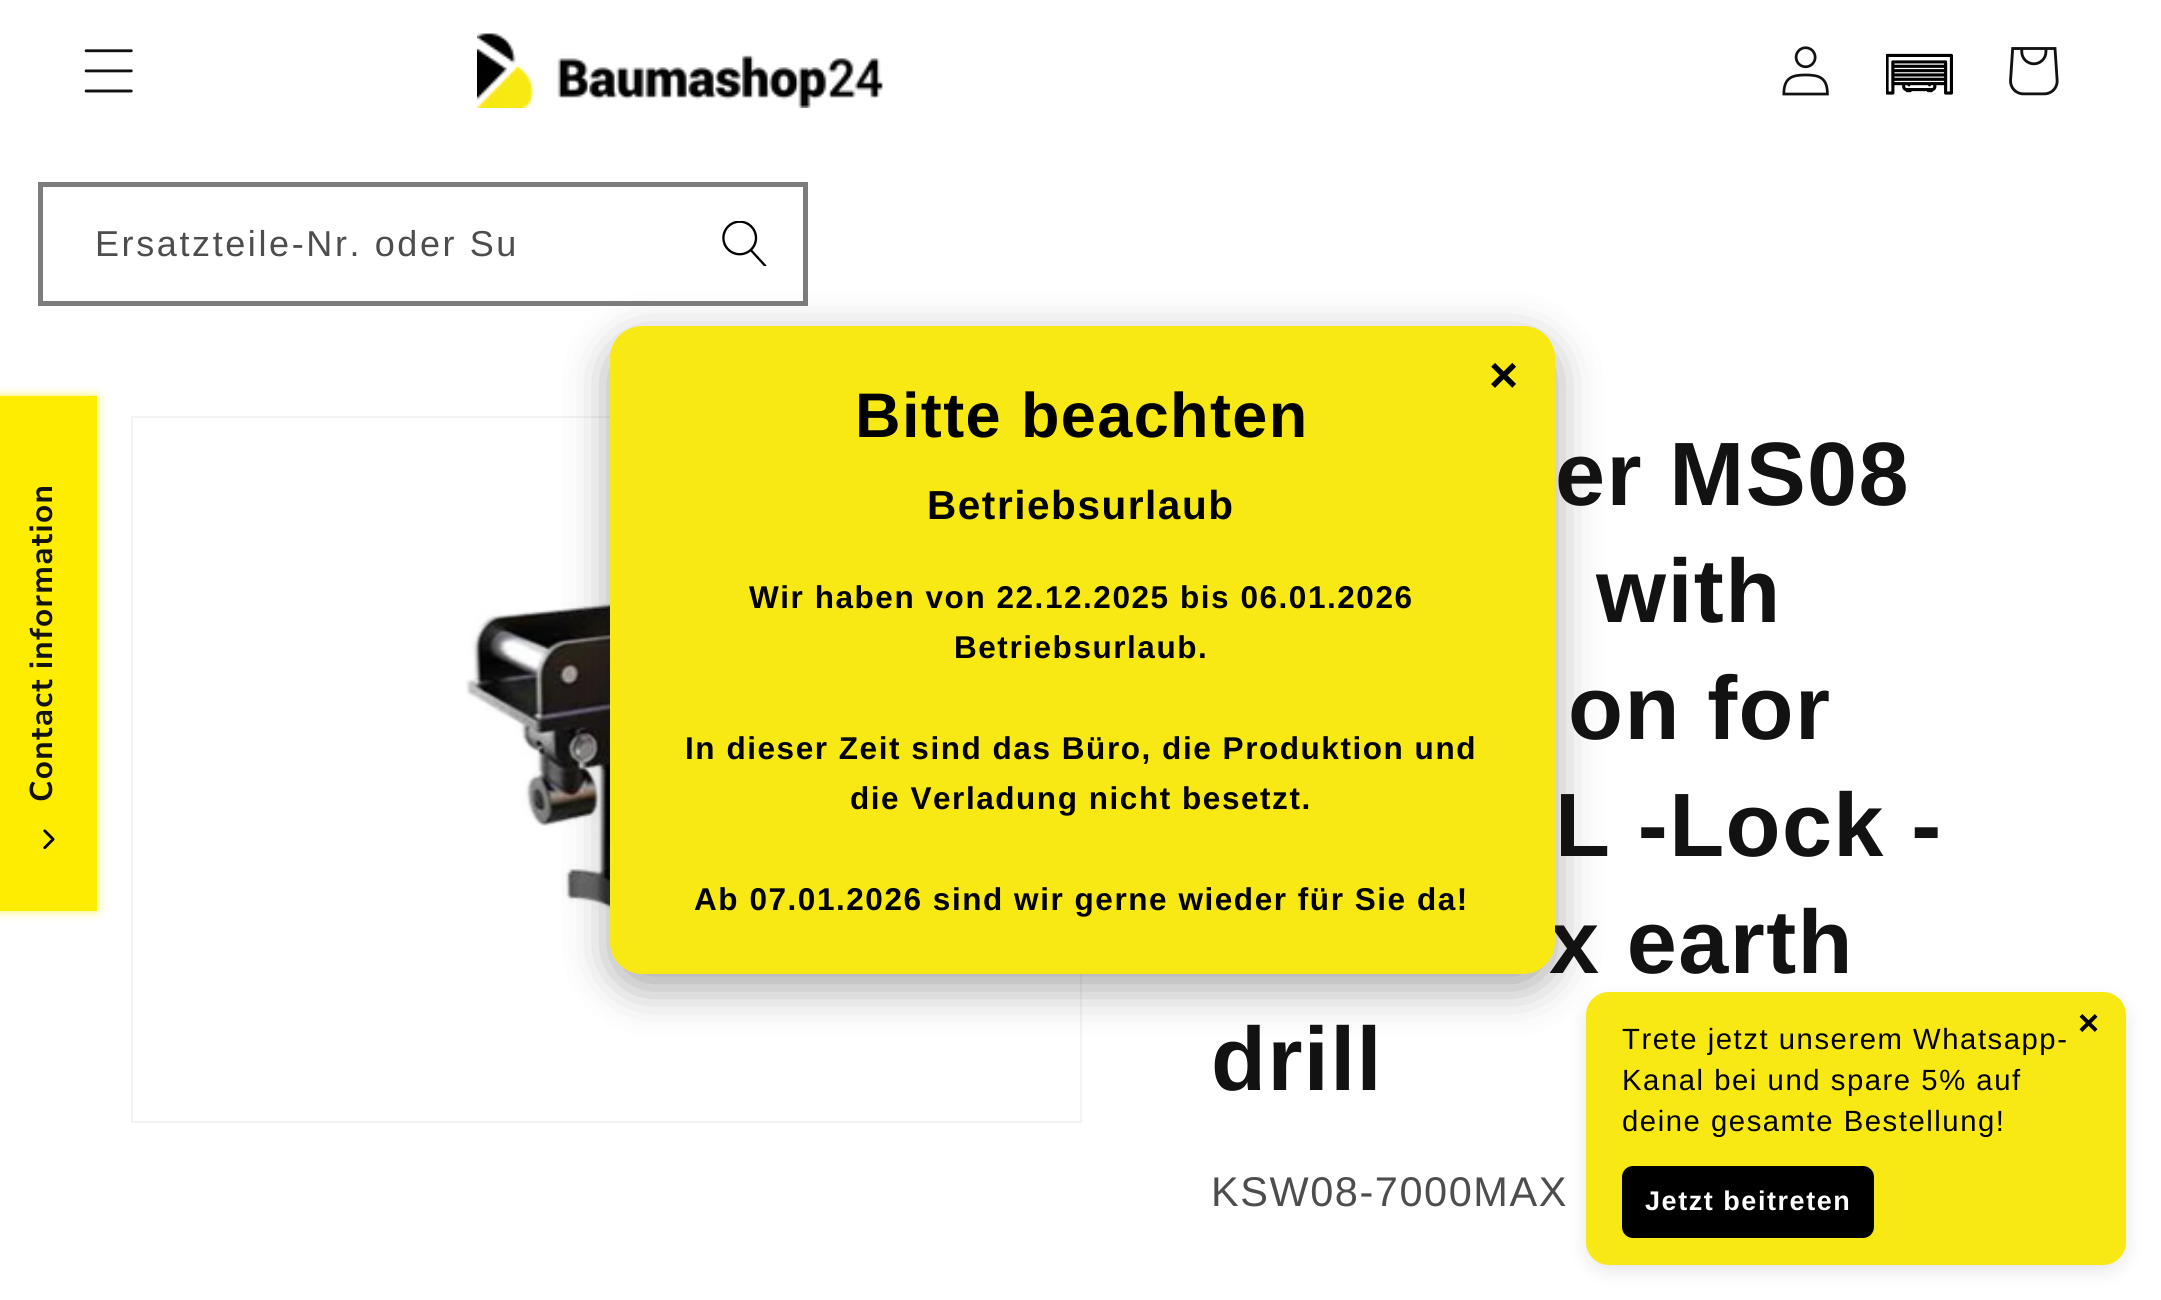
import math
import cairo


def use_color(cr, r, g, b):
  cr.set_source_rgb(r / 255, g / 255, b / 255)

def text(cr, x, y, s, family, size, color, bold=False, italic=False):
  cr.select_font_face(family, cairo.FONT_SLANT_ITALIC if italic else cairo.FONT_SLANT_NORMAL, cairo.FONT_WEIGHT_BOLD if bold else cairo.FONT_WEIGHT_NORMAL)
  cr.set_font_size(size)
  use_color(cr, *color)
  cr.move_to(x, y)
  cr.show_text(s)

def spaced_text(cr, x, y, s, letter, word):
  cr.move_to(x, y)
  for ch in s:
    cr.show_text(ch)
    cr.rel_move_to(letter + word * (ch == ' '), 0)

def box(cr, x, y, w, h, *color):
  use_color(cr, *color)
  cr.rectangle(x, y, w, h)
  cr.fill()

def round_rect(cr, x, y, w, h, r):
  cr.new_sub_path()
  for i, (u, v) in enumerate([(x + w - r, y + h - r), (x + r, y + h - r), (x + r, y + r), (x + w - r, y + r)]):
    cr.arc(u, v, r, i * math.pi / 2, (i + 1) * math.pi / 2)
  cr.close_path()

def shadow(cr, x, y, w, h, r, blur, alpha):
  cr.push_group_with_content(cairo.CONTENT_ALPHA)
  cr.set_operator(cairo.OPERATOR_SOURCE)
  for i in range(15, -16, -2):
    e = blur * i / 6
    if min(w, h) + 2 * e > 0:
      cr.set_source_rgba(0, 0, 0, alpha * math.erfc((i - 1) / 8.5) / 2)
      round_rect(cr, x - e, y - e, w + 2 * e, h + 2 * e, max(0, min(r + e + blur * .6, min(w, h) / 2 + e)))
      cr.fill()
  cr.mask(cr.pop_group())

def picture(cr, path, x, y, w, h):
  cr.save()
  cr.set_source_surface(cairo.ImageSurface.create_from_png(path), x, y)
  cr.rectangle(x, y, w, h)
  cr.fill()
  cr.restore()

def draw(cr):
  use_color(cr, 255, 255, 255)
  cr.paint()
  picture(cr, "img_01.png", 84, 49, 49, 44)
  picture(cr, "img_02.png", 477, 33, 406, 75)
  picture(cr, "img_03.png", 1782, 46, 47, 50)
  picture(cr, "img_04.png", 1886, 53, 67, 42)
  picture(cr, "img_05.png", 2009, 47, 50, 49)
  picture(cr, "img_06.png", 722, 221, 45, 45)
  cr.rectangle(40.5, 184.5, 765, 119)
  use_color(cr, 125, 125, 125)
  cr.set_line_width(5)
  cr.stroke()
  use_color(cr, 255, 237, 0)
  shadow(cr, -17, 398, 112, 511, 0, 5.5, 1)
  box(cr, 0, 396, 97, 515, 255, 237, 0)
  picture(cr, "img_07.png", 43, 829, 12, 21)
  cr.rectangle(132, 417, 949, 705)
  use_color(cr, 243, 243, 243)
  cr.set_line_width(2)
  cr.stroke()
  picture(cr, "img_08.png", 466, 598, 144, 343)
  use_color(cr, 0, 0, 0)
  shadow(cr, 610, 340, 945, 648, 32, 22.5, 0.35)
  shadow(cr, 1586, 999, 540, 272, 23, 9, 0.1)
  use_color(cr, 248, 233, 20)
  round_rect(cr, 1586, 992, 540, 273, 23)
  cr.fill()
  use_color(cr, 0, 0, 0)
  round_rect(cr, 1622, 1166, 252, 72, 11)
  cr.fill()
  cr.select_font_face("Liberation Sans")
  cr.set_font_size(36)
  use_color(cr, 77, 77, 77)
  spaced_text(cr, 95, 256, "Ersatzteile-Nr. oder Su", 2.6, 0)
  cr.select_font_face("Nunito Sans", cairo.FONT_SLANT_NORMAL, cairo.FONT_WEIGHT_BOLD)
  cr.set_font_size(31.5)
  use_color(cr, 18, 18, 18)
  cr.save()
  cr.translate(52, 802)
  cr.rotate(-90 * math.pi / 180)
  spaced_text(cr, 0, 0, "Contact information", 1.4, -1)
  cr.restore()
  cr.select_font_face("Liberation Sans", cairo.FONT_SLANT_NORMAL, cairo.FONT_WEIGHT_BOLD)
  cr.set_font_size(90)
  spaced_text(cr, 1555, 505, "er MS08", 1.4, 0)
  spaced_text(cr, 1596, 622, "with", 1.4, 0)
  spaced_text(cr, 1568, 739, "on for", 1.4, 0)
  spaced_text(cr, 1555, 856, "L -Lock -", 1.4, 0)
  spaced_text(cr, 1549, 973, "x earth", 1.4, 0)
  use_color(cr, 248, 233, 20)
  round_rect(cr, 610, 326, 945, 648, 32)
  cr.fill()
  text(cr, 1489, 392, "×", "Liberation Sans", 50, (0, 0, 0), bold=True)
  cr.set_font_size(31.5)
  spaced_text(cr, 694, 910, "Ab 07.01.2026 sind wir gerne wieder für Sie da!", 1.55, 0)
  spaced_text(cr, 850, 809, "die Verladung nicht besetzt.", 1.55, 0)
  spaced_text(cr, 685, 759, "In dieser Zeit sind das Büro, die Produktion und", 1.55, 0)
  spaced_text(cr, 954, 658, "Betriebsurlaub.", 1.55, 0)
  spaced_text(cr, 749, 608, "Wir haben von 22.12.2025 bis 06.01.2026", 1.55, 0)
  cr.set_font_size(40.5)
  spaced_text(cr, 927, 519, "Betriebsurlaub", 1.55, 0)
  cr.set_font_size(63)
  spaced_text(cr, 855, 437, "Bitte beachten", 1.4, 0)
  cr.set_font_size(90)
  use_color(cr, 18, 18, 18)
  spaced_text(cr, 1211, 1090, "drill", 1.4, 0)
  cr.select_font_face("Liberation Sans")
  cr.set_font_size(41.5)
  use_color(cr, 77, 77, 77)
  spaced_text(cr, 1211, 1206, "KSW08-7000MAX", 1.55, 0)
  text(cr, 2078, 1035, "×", "Liberation Sans", 36, (0, 0, 0), bold=True)
  cr.select_font_face("Liberation Sans")
  cr.set_font_size(29.25)
  spaced_text(cr, 1622, 1049, "Trete jetzt unserem Whatsapp-", 1.55, 0)
  spaced_text(cr, 1622, 1090, "Kanal bei und spare 5% auf", 1.55, 0)
  spaced_text(cr, 1622, 1131, "deine gesamte Bestellung!", 1.55, 0)
  cr.select_font_face("Liberation Sans", cairo.FONT_SLANT_NORMAL, cairo.FONT_WEIGHT_BOLD)
  cr.set_font_size(27)
  use_color(cr, 255, 255, 255)
  spaced_text(cr, 1645, 1210, "Jetzt beitreten", 1.55, 0)


surface = cairo.ImageSurface(cairo.FORMAT_RGB24, 2161, 1300)
cr = cairo.Context(surface)
options = cairo.FontOptions()
options.set_hint_metrics(cairo.HINT_METRICS_OFF)
options.set_hint_style(cairo.HINT_STYLE_NONE)
cr.set_font_options(options)
cr.set_miter_limit(4)
draw(cr)
surface.write_to_png("out.png")
